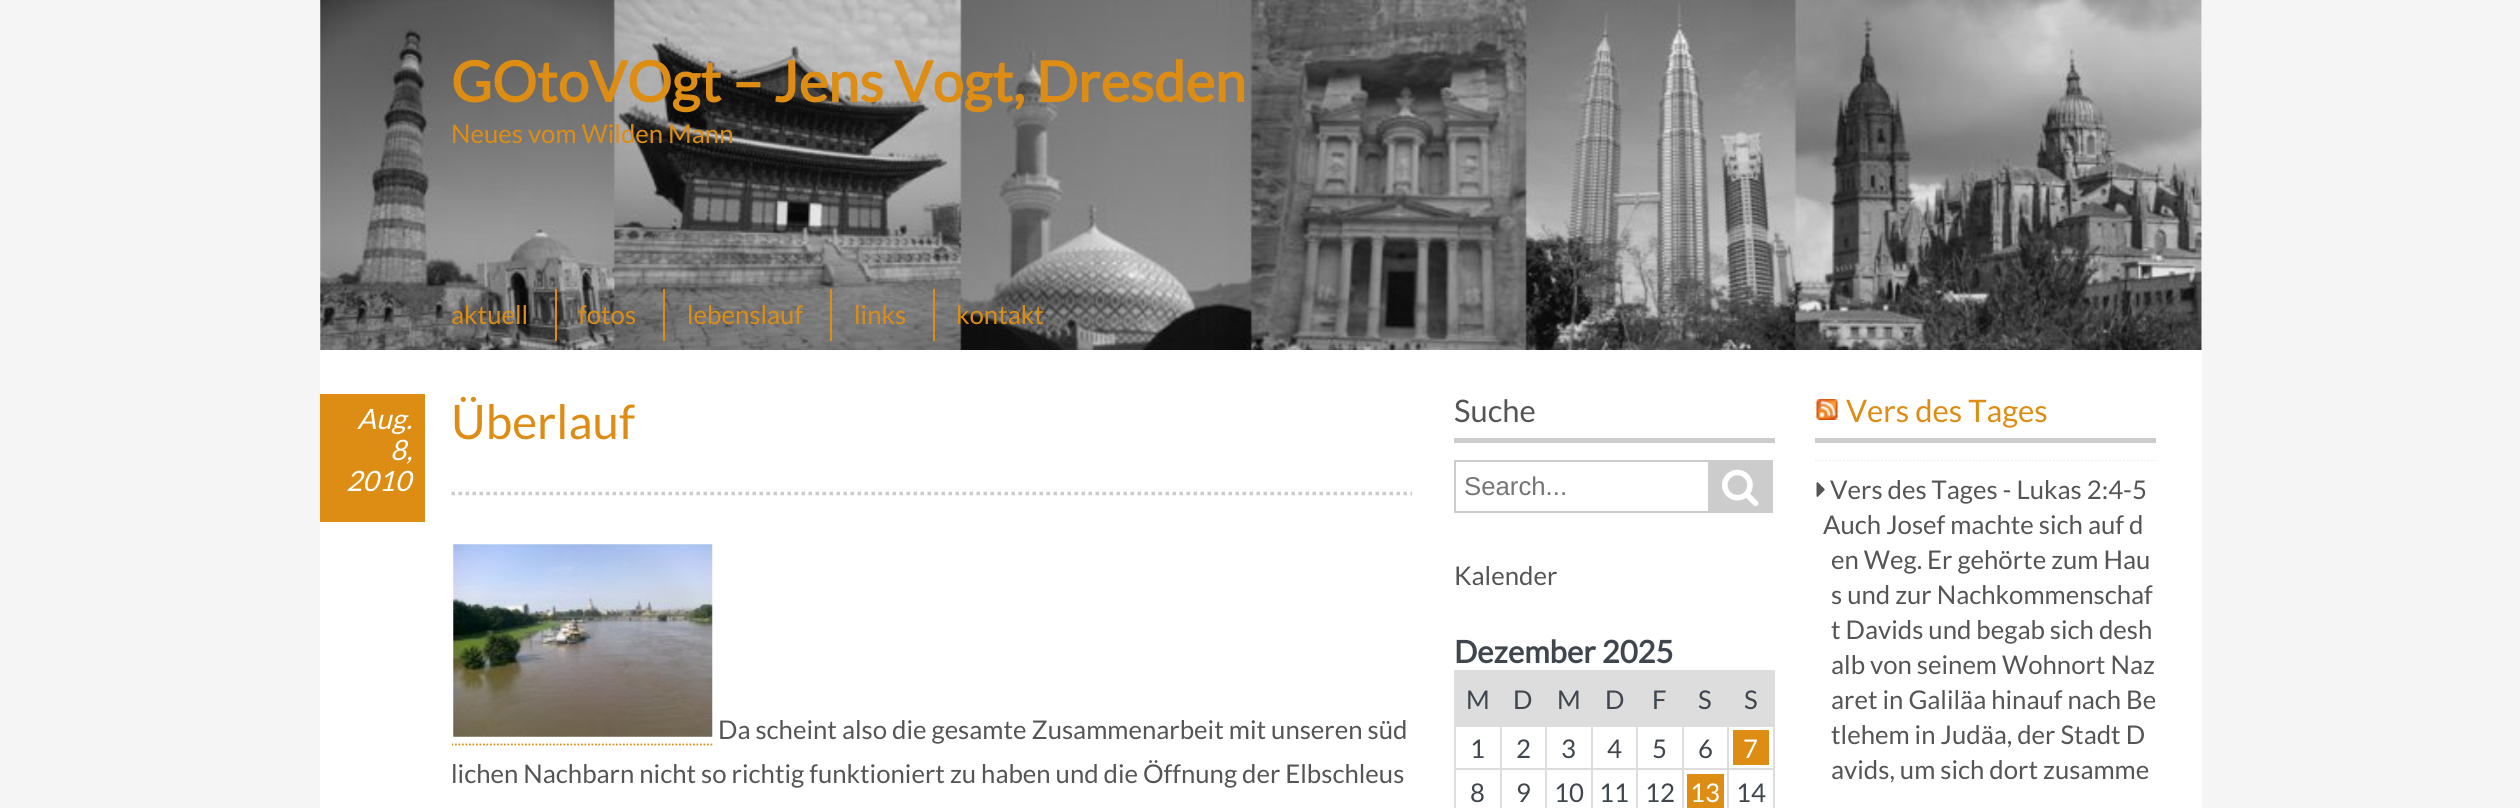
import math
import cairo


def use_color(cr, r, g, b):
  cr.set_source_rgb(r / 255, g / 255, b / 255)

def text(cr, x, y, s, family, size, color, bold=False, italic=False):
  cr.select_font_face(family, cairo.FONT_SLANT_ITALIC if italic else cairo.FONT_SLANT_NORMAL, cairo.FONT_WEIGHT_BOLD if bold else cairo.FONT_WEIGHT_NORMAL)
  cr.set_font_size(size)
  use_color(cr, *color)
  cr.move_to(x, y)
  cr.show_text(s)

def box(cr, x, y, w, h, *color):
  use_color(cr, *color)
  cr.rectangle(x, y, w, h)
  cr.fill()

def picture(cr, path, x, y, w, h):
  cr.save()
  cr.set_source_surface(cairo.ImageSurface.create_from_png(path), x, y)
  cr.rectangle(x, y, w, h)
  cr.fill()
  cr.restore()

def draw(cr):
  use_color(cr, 245, 245, 245)
  cr.paint()
  box(cr, 320, 0, 1882, 808, 255, 255, 255)
  picture(cr, "img_01.png", 320, 0, 1882, 350)
  box(cr, 555, 289, 2, 52, 221, 141, 19)
  box(cr, 663, 289, 2, 52, 221, 141, 19)
  box(cr, 830, 289, 2, 52, 221, 141, 19)
  box(cr, 933, 289, 2, 52, 221, 141, 19)
  box(cr, 320, 394, 105, 128, 221, 141, 19)
  cr.new_path()
  cr.move_to(451.5, 493.5)
  cr.line_to(1412, 493.5)
  use_color(cr, 204, 204, 204)
  cr.set_line_width(3.5)
  cr.set_dash([3.5, 3.5])
  cr.stroke()
  picture(cr, "img_02.png", 453, 544, 260, 193)
  cr.save()
  cr.rectangle(452, 543, 960, 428)
  cr.clip()
  cr.new_path()
  cr.move_to(451.5, 744.5)
  cr.line_to(714, 744.5)
  use_color(cr, 221, 141, 19)
  cr.set_line_width(1.8)
  cr.set_dash([1.75, 1.75])
  cr.stroke()
  cr.restore()
  box(cr, 1454, 438, 321, 5, 204, 204, 204)
  cr.rectangle(1455, 461, 254, 51)
  cr.set_line_width(2)
  cr.set_dash([])
  cr.stroke()
  box(cr, 1710, 460, 63, 53, 204, 204, 204)
  picture(cr, "img_03.png", 1722, 469, 37, 37)
  box(cr, 1454, 672, 321, 53, 221, 221, 221)
  box(cr, 1454, 670, 321, 2, 221, 221, 221)
  box(cr, 1727, 768, 2, 40, 221, 221, 221)
  box(cr, 1773, 725, 2, 83, 221, 221, 221)
  box(cr, 1727, 768, 48, 2, 221, 221, 221)
  box(cr, 1727, 725, 2, 45, 221, 221, 221)
  box(cr, 1682, 768, 2, 40, 221, 221, 221)
  box(cr, 1682, 768, 47, 2, 221, 221, 221)
  box(cr, 1682, 725, 2, 45, 221, 221, 221)
  box(cr, 1636, 768, 2, 40, 221, 221, 221)
  box(cr, 1636, 768, 48, 2, 221, 221, 221)
  box(cr, 1636, 725, 2, 45, 221, 221, 221)
  box(cr, 1591, 768, 2, 40, 221, 221, 221)
  box(cr, 1591, 768, 47, 2, 221, 221, 221)
  box(cr, 1591, 725, 2, 45, 221, 221, 221)
  box(cr, 1545, 768, 2, 40, 221, 221, 221)
  box(cr, 1545, 768, 48, 2, 221, 221, 221)
  box(cr, 1545, 725, 2, 45, 221, 221, 221)
  box(cr, 1500, 768, 2, 40, 221, 221, 221)
  box(cr, 1500, 768, 47, 2, 221, 221, 221)
  box(cr, 1500, 725, 2, 45, 221, 221, 221)
  box(cr, 1454, 768, 2, 40, 221, 221, 221)
  box(cr, 1454, 768, 48, 2, 221, 221, 221)
  box(cr, 1454, 725, 2, 45, 221, 221, 221)
  box(cr, 1454, 725, 321, 2, 221, 221, 221)
  box(cr, 1733, 730, 36, 35, 221, 141, 19)
  box(cr, 1687, 774, 37, 34, 221, 141, 19)
  box(cr, 1815, 438, 341, 5, 204, 204, 204)
  picture(cr, "img_04.png", 1816, 399, 22, 21)
  cr.save()
  cr.rectangle(1815, 460, 341, 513)
  cr.clip()
  cr.new_path()
  cr.move_to(1815, 459.5)
  cr.line_to(2156, 459.5)
  cr.set_line_width(1.8)
  cr.set_dash([1.75, 1.75])
  cr.stroke()
  cr.restore()
  picture(cr, "img_05.png", 1816, 482, 9, 15)
  text(cr, 451, 102, "GOtoVOgt – Jens Vogt, Dresden", "Lato", 56, (221, 141, 19), bold=True)
  text(cr, 451, 143, "Neues vom Wilden Mann", "Lato", 25.75, (221, 141, 19))
  text(cr, 451, 324, "aktuell", "Lato", 25.75, (221, 141, 19))
  text(cr, 578, 324, "fotos", "Lato", 25.75, (221, 141, 19))
  text(cr, 687, 324, "lebenslauf", "Lato", 25.75, (221, 141, 19))
  text(cr, 854, 324, "links", "Lato", 25.75, (221, 141, 19))
  text(cr, 956, 324, "kontakt", "Lato", 25.75, (221, 141, 19))
  text(cr, 357, 429, "Aug.", "Lato", 28, (255, 255, 255), italic=True)
  text(cr, 390, 460, "8,", "Lato", 28, (255, 255, 255), italic=True)
  text(cr, 346, 491, "2010", "Lato", 28, (255, 255, 255), italic=True)
  text(cr, 451, 439, "Überlauf", "Lato", 47.5, (221, 141, 19))
  text(cr, 718, 739, "Da scheint also die gesamte Zusammenarbeit mit unseren süd", "Lato", 25.75, (85, 85, 85))
  text(cr, 451, 783, "lichen Nachbarn nicht so richtig funktioniert zu haben und die Öffnung der Elbschleus", "Lato", 25.75, (85, 85, 85))
  text(cr, 1454, 422, "Suche", "Lato", 31, (85, 85, 85))
  text(cr, 1464, 495, "Search...", "Liberation Sans", 25.75, (117, 117, 117))
  text(cr, 1454, 585, "Kalender", "Lato", 25.75, (85, 85, 85))
  text(cr, 1454, 663, "Dezember 2025", "Lato", 31, (64, 70, 77), bold=True)
  text(cr, 1466, 709, "M", "Lato", 25.75, (64, 70, 77))
  text(cr, 1513, 709, "D", "Lato", 25.75, (64, 70, 77))
  text(cr, 1557, 709, "M", "Lato", 25.75, (64, 70, 77))
  text(cr, 1605, 709, "D", "Lato", 25.75, (64, 70, 77))
  text(cr, 1652, 709, "F", "Lato", 25.75, (64, 70, 77))
  text(cr, 1698, 709, "S", "Lato", 25.75, (64, 70, 77))
  text(cr, 1744, 709, "S", "Lato", 25.75, (64, 70, 77))
  text(cr, 1470, 758, "1", "Lato", 25.75, (64, 70, 77))
  text(cr, 1516, 758, "2", "Lato", 25.75, (64, 70, 77))
  text(cr, 1561, 758, "3", "Lato", 25.75, (64, 70, 77))
  text(cr, 1607, 758, "4", "Lato", 25.75, (64, 70, 77))
  text(cr, 1652, 758, "5", "Lato", 25.75, (64, 70, 77))
  text(cr, 1698, 758, "6", "Lato", 25.75, (64, 70, 77))
  text(cr, 1743, 758, "7", "Lato", 25.75, (255, 255, 255))
  text(cr, 1470, 802, "8", "Lato", 25.75, (64, 70, 77))
  text(cr, 1516, 802, "9", "Lato", 25.75, (64, 70, 77))
  text(cr, 1554, 802, "10", "Lato", 25.75, (64, 70, 77))
  text(cr, 1599, 802, "11", "Lato", 25.75, (64, 70, 77))
  text(cr, 1645, 802, "12", "Lato", 25.75, (64, 70, 77))
  text(cr, 1690, 802, "13", "Lato", 25.75, (255, 255, 255))
  text(cr, 1736, 802, "14", "Lato", 25.75, (64, 70, 77))
  text(cr, 1846, 422, "Vers des Tages", "Lato", 31, (221, 141, 19))
  text(cr, 1830, 499, "Vers des Tages - Lukas 2:4-5", "Lato", 25.75, (85, 85, 85))
  text(cr, 1823, 534, "Auch Josef machte sich auf d", "Lato", 25.75, (85, 85, 85))
  text(cr, 1831, 569, "en Weg. Er gehörte zum Hau", "Lato", 25.75, (85, 85, 85))
  text(cr, 1831, 604, "s und zur Nachkommenschaf", "Lato", 25.75, (85, 85, 85))
  text(cr, 1831, 639, "t Davids und begab sich desh", "Lato", 25.75, (85, 85, 85))
  text(cr, 1831, 674, "alb von seinem Wohnort Naz", "Lato", 25.75, (85, 85, 85))
  text(cr, 1831, 709, "aret in Galiläa hinauf nach Be", "Lato", 25.75, (85, 85, 85))
  text(cr, 1831, 744, "tlehem in Judäa, der Stadt D", "Lato", 25.75, (85, 85, 85))
  text(cr, 1831, 779, "avids, um sich dort zusamme", "Lato", 25.75, (85, 85, 85))


surface = cairo.ImageSurface(cairo.FORMAT_RGB24, 2520, 808)
cr = cairo.Context(surface)
options = cairo.FontOptions()
options.set_hint_metrics(cairo.HINT_METRICS_OFF)
options.set_hint_style(cairo.HINT_STYLE_NONE)
cr.set_font_options(options)
cr.set_miter_limit(4)
draw(cr)
surface.write_to_png("out.png")
